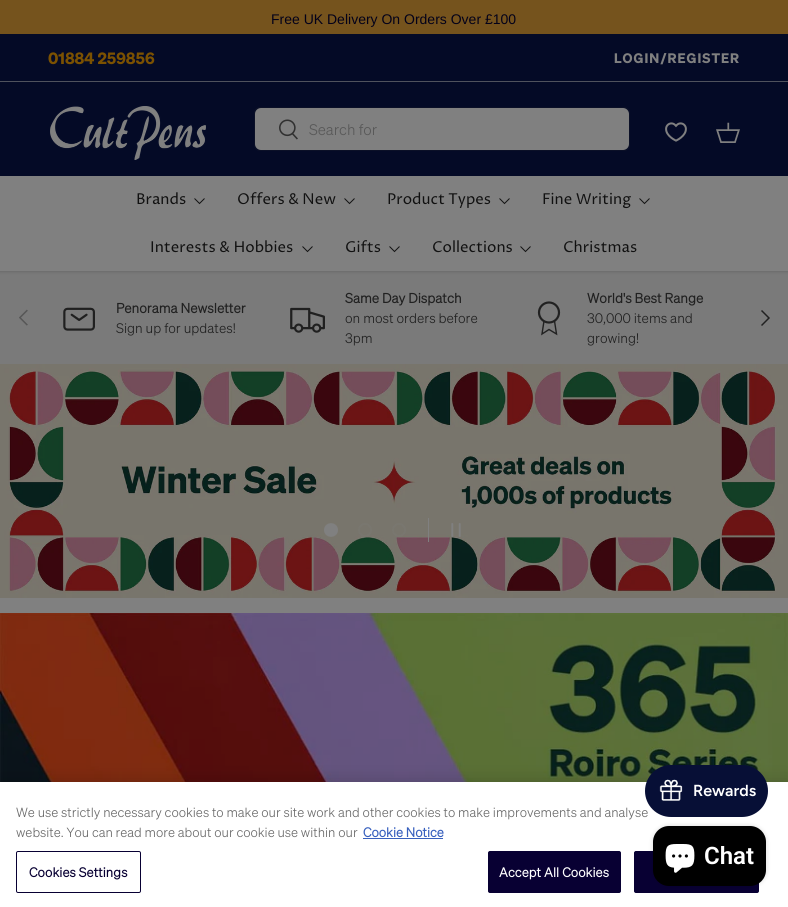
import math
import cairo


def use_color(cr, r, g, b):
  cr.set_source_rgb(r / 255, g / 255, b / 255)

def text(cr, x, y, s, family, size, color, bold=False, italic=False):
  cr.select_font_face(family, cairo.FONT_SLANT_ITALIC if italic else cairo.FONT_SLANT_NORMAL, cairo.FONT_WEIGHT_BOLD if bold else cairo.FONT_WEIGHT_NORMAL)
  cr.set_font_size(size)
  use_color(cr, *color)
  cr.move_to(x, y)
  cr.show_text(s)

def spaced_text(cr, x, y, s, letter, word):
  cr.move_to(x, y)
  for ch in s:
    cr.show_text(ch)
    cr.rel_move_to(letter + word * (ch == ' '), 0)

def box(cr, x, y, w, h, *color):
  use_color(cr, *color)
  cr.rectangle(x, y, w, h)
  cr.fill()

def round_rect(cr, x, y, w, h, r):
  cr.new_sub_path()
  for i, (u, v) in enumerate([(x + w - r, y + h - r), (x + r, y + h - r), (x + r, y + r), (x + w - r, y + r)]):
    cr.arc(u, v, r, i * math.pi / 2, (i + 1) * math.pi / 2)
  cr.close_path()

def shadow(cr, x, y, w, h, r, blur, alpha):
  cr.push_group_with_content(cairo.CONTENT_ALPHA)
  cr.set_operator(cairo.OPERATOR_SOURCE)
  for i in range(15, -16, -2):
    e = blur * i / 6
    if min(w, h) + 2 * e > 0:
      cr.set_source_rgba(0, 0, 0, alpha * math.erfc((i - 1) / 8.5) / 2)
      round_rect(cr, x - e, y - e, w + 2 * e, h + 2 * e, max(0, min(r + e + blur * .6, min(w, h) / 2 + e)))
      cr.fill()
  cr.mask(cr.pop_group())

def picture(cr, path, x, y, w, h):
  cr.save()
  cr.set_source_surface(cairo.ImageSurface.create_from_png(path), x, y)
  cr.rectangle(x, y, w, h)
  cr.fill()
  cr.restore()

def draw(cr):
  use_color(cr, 128, 128, 128)
  cr.paint()
  box(cr, 0, 0, 788, 34, 117, 83, 29)
  box(cr, 0, 272, 788, 92, 122, 122, 122)
  use_color(cr, 0, 0, 0)
  shadow(cr, -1, 81, 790, 192, 0, 1.5, 0.08)
  box(cr, 0, 34, 788, 47, 4, 10, 38)
  box(cr, 0, 81, 788, 1, 79, 82, 93)
  box(cr, 0, 82, 788, 94, 4, 10, 38)
  picture(cr, "img_01.png", 50, 106, 156, 54)
  round_rect(cr, 254.5, 107.5, 375, 43, 5.5)
  use_color(cr, 11, 16, 39)
  cr.set_line_width(1)
  cr.stroke()
  use_color(cr, 128, 128, 128)
  round_rect(cr, 255, 108, 374, 42, 6)
  cr.fill()
  picture(cr, "img_02.png", 279, 119, 19, 21)
  picture(cr, "img_03.png", 665, 122, 22, 20)
  picture(cr, "img_04.png", 716, 122, 24, 21)
  box(cr, 0, 176, 788, 95, 128, 128, 128)
  cr.new_path()
  cr.move_to(204.5, 198.5)
  cr.line_to(199.5, 203.5)
  cr.line_to(194.5, 198.5)
  use_color(cr, 17, 17, 17)
  cr.stroke()
  cr.new_path()
  cr.move_to(354.5, 198.5)
  cr.line_to(349.5, 203.5)
  cr.line_to(344.5, 198.5)
  cr.stroke()
  cr.new_path()
  cr.move_to(509.5, 198.5)
  cr.line_to(504.5, 203.5)
  cr.line_to(499.5, 198.5)
  cr.stroke()
  cr.new_path()
  cr.move_to(649.5, 198.5)
  cr.line_to(644.5, 203.5)
  cr.line_to(639.5, 198.5)
  cr.stroke()
  cr.new_path()
  cr.move_to(312.5, 246.5)
  cr.line_to(307.5, 251.5)
  cr.line_to(302.5, 246.5)
  cr.stroke()
  cr.new_path()
  cr.move_to(399.5, 246.5)
  cr.line_to(394.5, 251.5)
  cr.line_to(389.5, 246.5)
  cr.stroke()
  cr.new_path()
  cr.move_to(530.5, 246.5)
  cr.line_to(525.5, 251.5)
  cr.line_to(520.5, 246.5)
  cr.stroke()
  box(cr, 0, 271, 788, 1, 111, 111, 111)
  picture(cr, "img_05.png", 63, 307, 32, 24)
  picture(cr, "img_06.png", 290, 307, 35, 26)
  cr.arc(549, 312.5, 10, 0, 2 * math.pi)
  use_color(cr, 33, 33, 33)
  cr.set_line_width(2.2)
  cr.stroke()
  cr.new_path()
  cr.move_to(544, 321)
  cr.line_to(542, 334)
  cr.line_to(549, 329.5)
  cr.line_to(556.5, 334)
  cr.line_to(554.5, 321)
  cr.set_line_width(1.4)
  cr.stroke()
  picture(cr, "img_07.png", 19, 309, 9, 17)
  cr.new_path()
  cr.move_to(761.5, 310.5)
  cr.line_to(769, 318)
  cr.line_to(761.5, 325.5)
  cr.set_line_width(1.5)
  cr.stroke()
  picture(cr, "img_08.png", 0, 364, 788, 234)
  cr.new_path()
  cr.move_to(327.5, 530)
  cr.curve_to(327.5, 525.5, 334.5, 525.5, 334.5, 530)
  cr.curve_to(334.5, 534.5, 327.5, 534.5, 327.5, 530)
  use_color(cr, 128, 128, 128)
  cr.set_line_width(7)
  cr.stroke()
  cr.arc(365, 530, 6, 0, 2 * math.pi)
  cr.set_source_rgba(0.502, 0.502, 0.502, 0.2)
  cr.set_line_width(2)
  cr.stroke()
  cr.arc(399, 530, 6, 0, 2 * math.pi)
  cr.stroke()
  box(cr, 428, 518, 1, 24, 128, 128, 128)
  picture(cr, "img_09.png", 451, 523, 10, 14)
  picture(cr, "img_10.png", 0, 613, 788, 169)
  use_color(cr, 0, 0, 0)
  shadow(cr, 0, 782, 788, 125, 0, 9, 0.2)
  box(cr, 0, 782, 788, 125, 255, 255, 255)
  box(cr, 363, 838, 80, 1, 56, 96, 190)
  round_rect(cr, 16.5, 851.5, 124, 41, 1.5)
  use_color(cr, 8, 0, 51)
  cr.set_line_width(1)
  cr.stroke()
  round_rect(cr, 488.5, 851.5, 132, 41, 1.5)
  cr.fill_preserve()
  cr.stroke()
  round_rect(cr, 634.5, 851.5, 124, 41, 1.5)
  cr.fill_preserve()
  cr.stroke()
  use_color(cr, 0, 0, 0)
  shadow(cr, 653, 826, 113, 60, 16, 2.5, 0.15)
  use_color(cr, 0, 0, 0)
  round_rect(cr, 653, 826, 113, 60, 16)
  cr.fill()
  picture(cr, "img_12.png", 665, 844, 30, 29)
  text(cr, 271, 24, "Free UK Delivery On Orders Over £100", "Liberation Sans", 14, (3, 1, 25))
  text(cr, 48, 64, "01884 259856", "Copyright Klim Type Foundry", 16, (123, 81, 1), bold=True)
  cr.set_font_size(13.5)
  use_color(cr, 128, 128, 128)
  spaced_text(cr, 614, 63, "LOGIN/REGISTER", 1, 0)
  text(cr, 309, 135, "Search for", "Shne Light", 15, (88, 88, 88))
  text(cr, 136, 204, "Brands", "Proza Libre", 15, (17, 17, 17))
  text(cr, 237, 204, "Offers & New", "Proza Libre", 15, (17, 17, 17))
  text(cr, 387, 204, "Product Types", "Proza Libre", 15, (17, 17, 17))
  text(cr, 542, 204, "Fine Writing", "Proza Libre", 15, (17, 17, 17))
  text(cr, 150, 252, "Interests & Hobbies", "Proza Libre", 15, (17, 17, 17))
  text(cr, 345, 252, "Gifts", "Proza Libre", 15, (17, 17, 17))
  text(cr, 432, 252, "Collections", "Proza Libre", 15, (17, 17, 17))
  text(cr, 563, 252, "Christmas", "Proza Libre", 15, (17, 17, 17))
  text(cr, 116, 313, "Penorama Newsletter", "Shne", 13.5, (33, 33, 33), bold=True)
  text(cr, 116, 333, "Sign up for updates!", "Shne Light", 13.5, (33, 33, 33))
  text(cr, 345, 303, "Same Day Dispatch", "Shne", 13.5, (33, 33, 33), bold=True)
  text(cr, 345, 323, "on most orders before", "Shne Light", 13.5, (33, 33, 33))
  text(cr, 345, 343, "3pm", "Shne Light", 13.5, (33, 33, 33))
  text(cr, 587, 303, "World's Best Range", "Shne", 13.5, (33, 33, 33), bold=True)
  text(cr, 587, 323, "30,000 items and", "Shne Light", 13.5, (33, 33, 33))
  text(cr, 587, 343, "growing!", "Shne Light", 13.5, (33, 33, 33))
  text(cr, 16, 817, "We use strictly necessary cookies to make our site work and other cookies to make improvements and analyse", "Shne Light", 13, (105, 105, 105))
  use_color(cr, 7, 15, 54)
  round_rect(cr, 645, 765, 123, 52, 26)
  cr.fill()
  text(cr, 693, 796, "Rewards", "Figtree SemiBold", 16, (255, 255, 255))
  picture(cr, "img_11.png", 659, 779, 24, 22)
  text(cr, 16, 837, "website. You can read more about our cookie use within our", "Shne Light", 13, (105, 105, 105))
  text(cr, 363, 837, "Cookie Notice", "Shne", 13, (56, 96, 190), bold=True)
  use_color(cr, 8, 0, 51)
  spaced_text(cr, 29, 877, "Cookies Settings", 0.1, 0)
  use_color(cr, 255, 255, 255)
  spaced_text(cr, 499, 877, "Accept All Cookies", 0.1, 0)
  text(cr, 704, 864, "Chat", "Roboto SemiBold", 24, (255, 255, 255))


surface = cairo.ImageSurface(cairo.FORMAT_RGB24, 788, 907)
cr = cairo.Context(surface)
options = cairo.FontOptions()
options.set_hint_metrics(cairo.HINT_METRICS_OFF)
options.set_hint_style(cairo.HINT_STYLE_NONE)
cr.set_font_options(options)
cr.set_miter_limit(4)
draw(cr)
surface.write_to_png("out.png")
